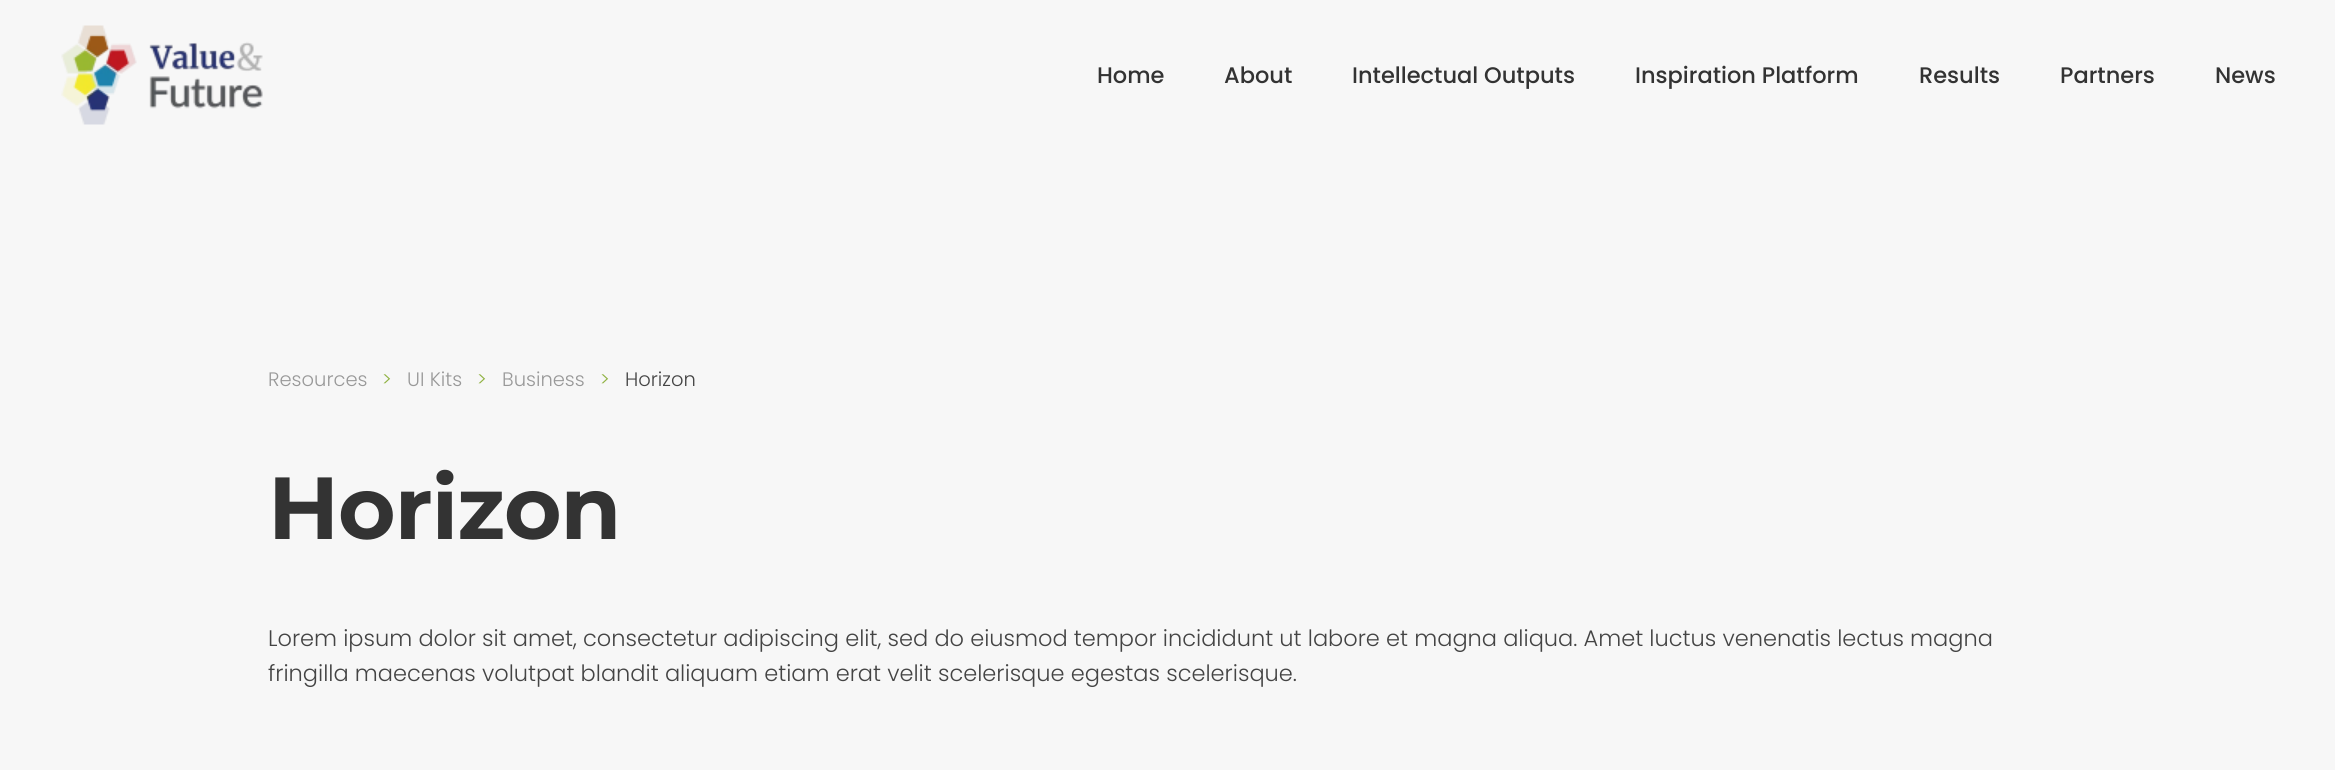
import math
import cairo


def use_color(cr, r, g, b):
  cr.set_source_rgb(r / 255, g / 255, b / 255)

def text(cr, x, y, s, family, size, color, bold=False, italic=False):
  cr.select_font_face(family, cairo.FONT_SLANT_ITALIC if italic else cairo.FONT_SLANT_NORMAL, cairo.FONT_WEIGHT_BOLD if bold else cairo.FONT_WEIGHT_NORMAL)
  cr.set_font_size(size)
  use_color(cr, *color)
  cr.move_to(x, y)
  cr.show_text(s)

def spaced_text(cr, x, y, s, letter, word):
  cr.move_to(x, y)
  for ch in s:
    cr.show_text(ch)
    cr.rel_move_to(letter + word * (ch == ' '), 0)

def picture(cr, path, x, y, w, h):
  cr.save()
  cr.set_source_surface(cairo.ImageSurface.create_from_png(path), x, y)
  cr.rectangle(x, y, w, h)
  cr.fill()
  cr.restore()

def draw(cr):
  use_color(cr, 247, 247, 247)
  cr.paint()
  picture(cr, "img_01.png", 61, 25, 202, 100)
  text(cr, 1097, 83, "Home", "Poppins Medium", 22.5, (51, 51, 51))
  text(cr, 1224, 83, "About", "Poppins Medium", 22.5, (51, 51, 51))
  text(cr, 1352, 83, "Intellectual Outputs", "Poppins Medium", 22.5, (51, 51, 51))
  text(cr, 1635, 83, "Inspiration Platform", "Poppins Medium", 22.5, (51, 51, 51))
  text(cr, 1919, 83, "Results", "Poppins Medium", 22.5, (51, 51, 51))
  text(cr, 2060, 83, "Partners", "Poppins Medium", 22.5, (51, 51, 51))
  text(cr, 2215, 83, "News", "Poppins Medium", 22.5, (51, 51, 51))
  text(cr, 268, 386, "Resources", "Poppins Light", 19.5, (153, 153, 153))
  text(cr, 382, 386, ">", "Poppins Light", 19.5, (144, 178, 66))
  text(cr, 407, 386, "UI Kits", "Poppins Light", 19.5, (153, 153, 153))
  text(cr, 477, 386, ">", "Poppins Light", 19.5, (144, 178, 66))
  text(cr, 502, 386, "Business", "Poppins Light", 19.5, (153, 153, 153))
  text(cr, 600, 386, ">", "Poppins Light", 19.5, (144, 178, 66))
  text(cr, 625, 386, "Horizon", "Poppins Light", 19.5, (68, 68, 68))
  cr.select_font_face("Montserrat", cairo.FONT_SLANT_NORMAL, cairo.FONT_WEIGHT_BOLD)
  cr.set_font_size(88)
  use_color(cr, 51, 51, 51)
  spaced_text(cr, 268, 539, "Horizon", -1, 0)
  text(cr, 268, 646, "Lorem ipsum dolor sit amet, consectetur adipiscing elit, sed do eiusmod tempor incididunt ut labore et magna aliqua. Amet luctus venenatis lectus magna", "Poppins Light", 22.5, (68, 68, 68))
  text(cr, 268, 681, "fringilla maecenas volutpat blandit aliquam etiam erat velit scelerisque egestas scelerisque.", "Poppins Light", 22.5, (68, 68, 68))


surface = cairo.ImageSurface(cairo.FORMAT_RGB24, 2335, 770)
cr = cairo.Context(surface)
options = cairo.FontOptions()
options.set_hint_metrics(cairo.HINT_METRICS_OFF)
options.set_hint_style(cairo.HINT_STYLE_NONE)
cr.set_font_options(options)
cr.set_miter_limit(4)
draw(cr)
surface.write_to_png("out.png")
